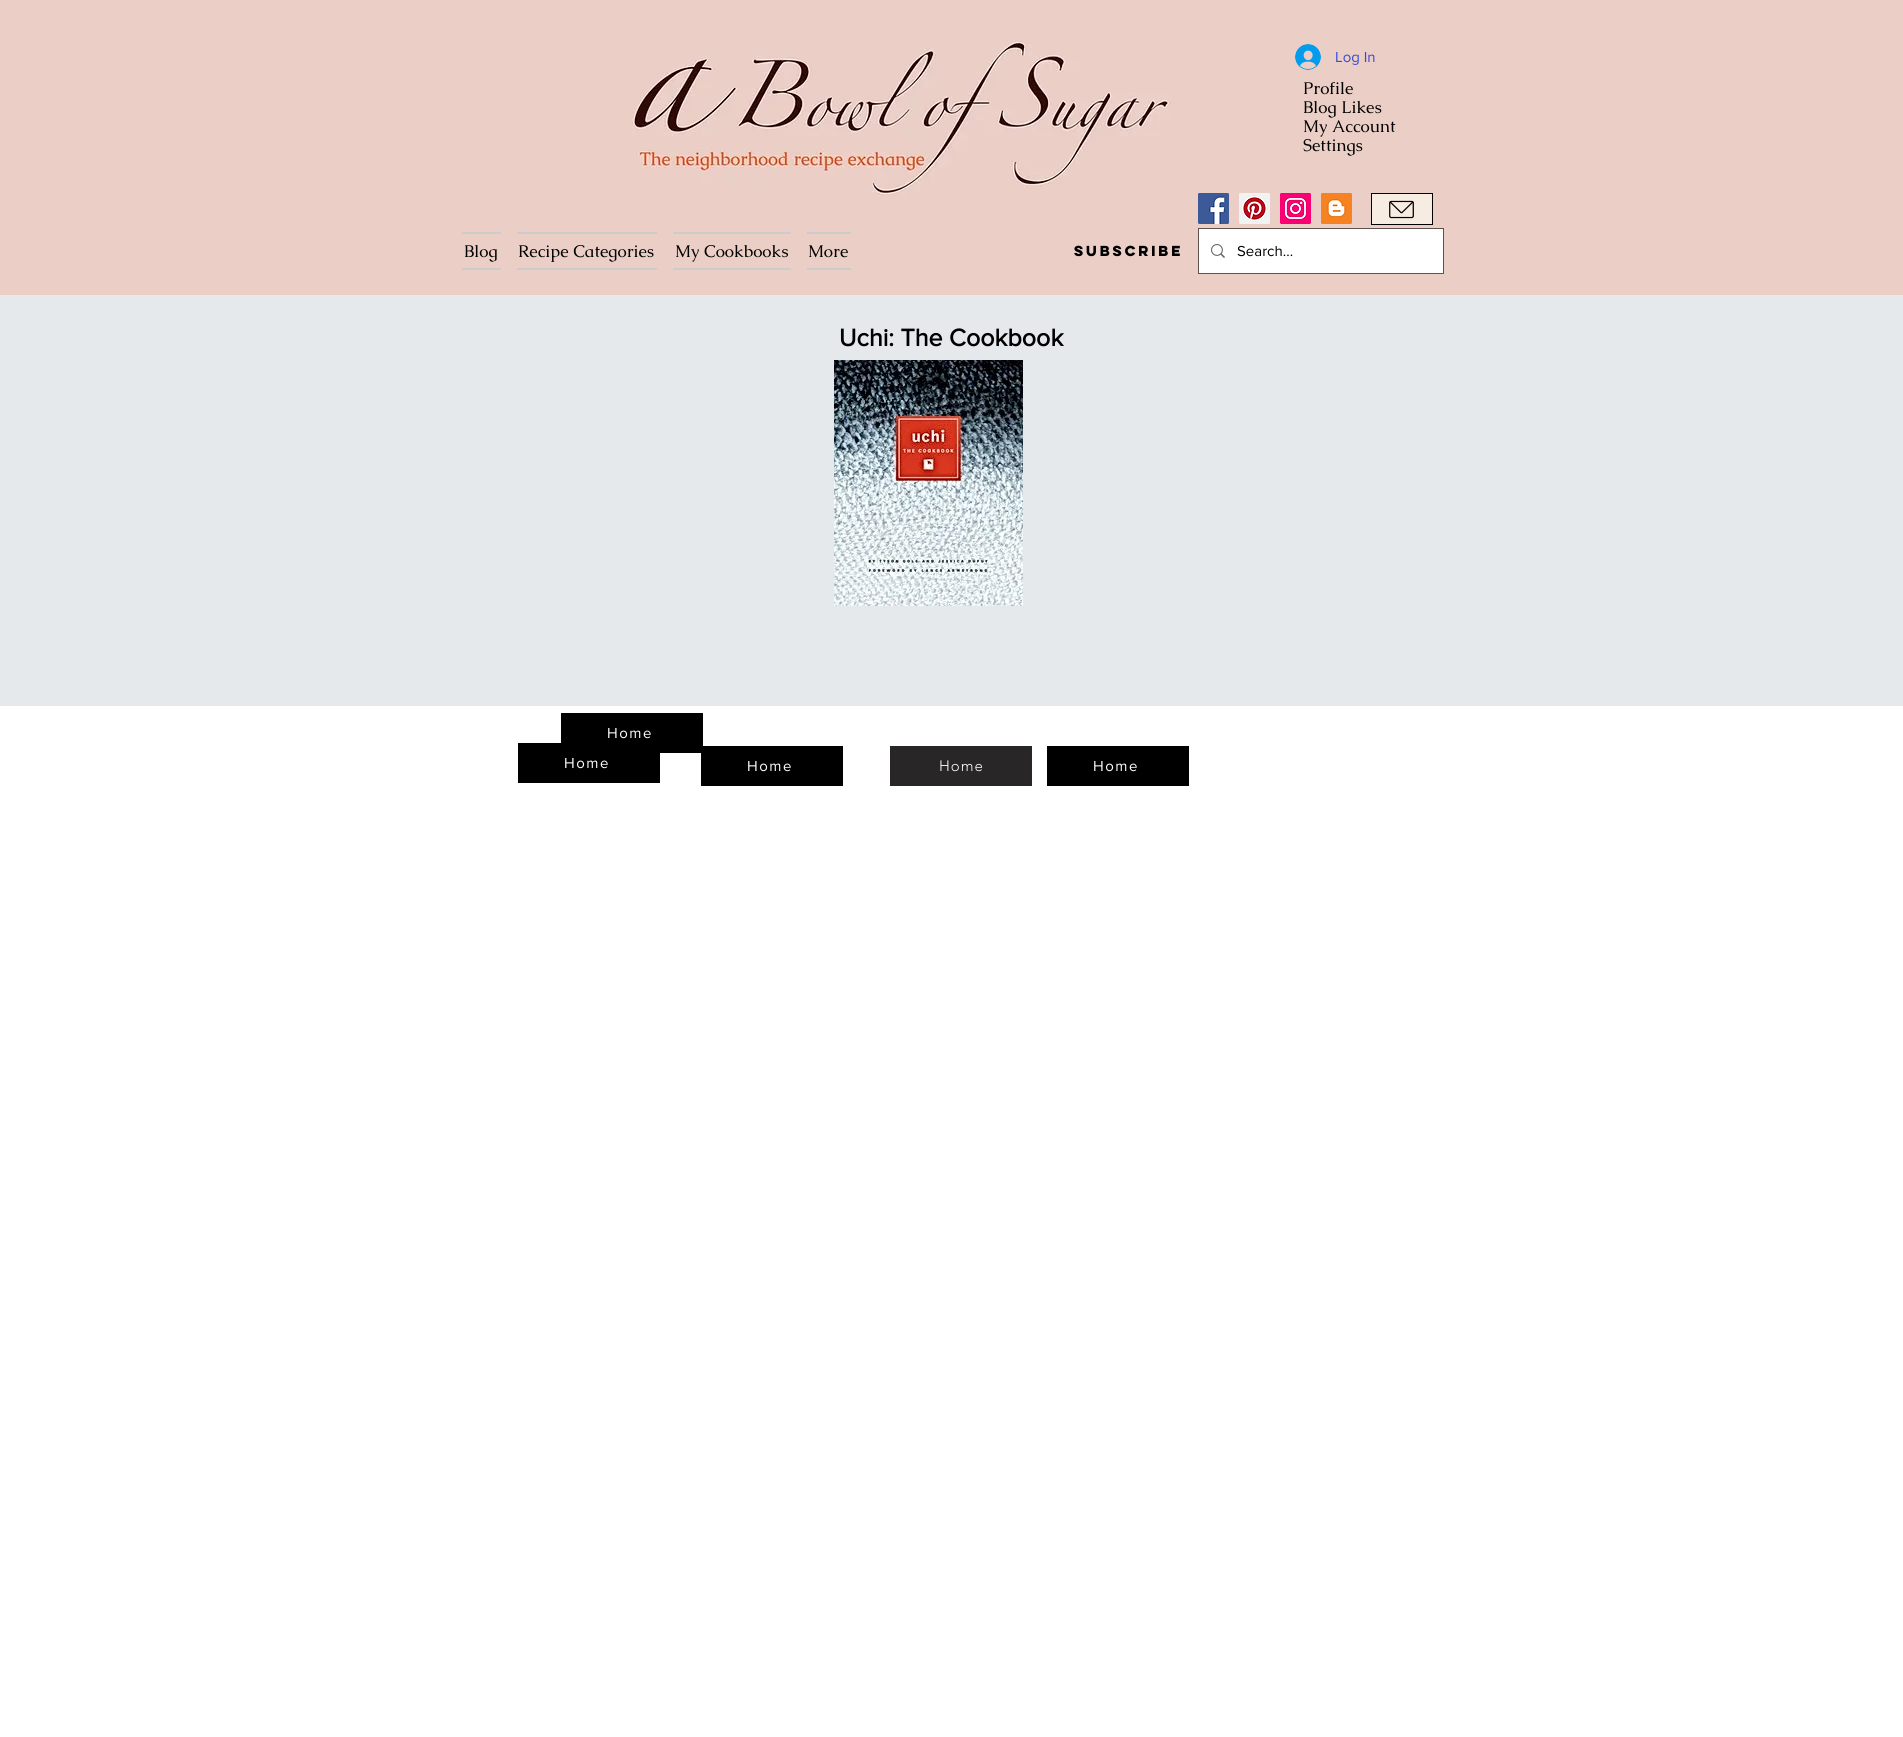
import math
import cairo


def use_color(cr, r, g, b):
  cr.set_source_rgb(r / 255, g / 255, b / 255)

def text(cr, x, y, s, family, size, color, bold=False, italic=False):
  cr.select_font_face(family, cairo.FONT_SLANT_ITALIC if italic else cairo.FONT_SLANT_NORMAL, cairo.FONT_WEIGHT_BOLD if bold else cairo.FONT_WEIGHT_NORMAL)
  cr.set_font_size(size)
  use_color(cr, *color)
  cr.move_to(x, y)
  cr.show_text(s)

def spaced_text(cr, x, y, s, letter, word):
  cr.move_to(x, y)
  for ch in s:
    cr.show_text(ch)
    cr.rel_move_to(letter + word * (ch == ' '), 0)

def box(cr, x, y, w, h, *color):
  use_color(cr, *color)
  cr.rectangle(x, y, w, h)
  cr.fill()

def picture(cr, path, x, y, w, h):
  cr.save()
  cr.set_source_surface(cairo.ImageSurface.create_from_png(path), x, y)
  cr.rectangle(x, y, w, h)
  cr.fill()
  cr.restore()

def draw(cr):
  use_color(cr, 255, 255, 255)
  cr.paint()
  box(cr, 0, 0, 1903, 295, 235, 206, 197)
  picture(cr, "img_01.png", 632, 40, 539, 156)
  picture(cr, "img_02.png", 1295, 44, 26, 26)
  picture(cr, "img_03.png", 1198, 193, 31, 31)
  picture(cr, "img_04.png", 1239, 193, 31, 31)
  picture(cr, "img_05.png", 1280, 193, 31, 31)
  picture(cr, "img_06.png", 1321, 193, 31, 31)
  use_color(cr, 247, 236, 226)
  cr.rectangle(1371.5, 193.5, 61, 31)
  cr.fill_preserve()
  use_color(cr, 0, 0, 0)
  cr.set_line_width(1)
  cr.stroke()
  picture(cr, "img_07.png", 1389, 200, 25, 19)
  box(cr, 462, 232, 39, 2, 204, 204, 204)
  box(cr, 462, 268, 39, 2, 204, 204, 204)
  box(cr, 517, 232, 140, 2, 204, 204, 204)
  box(cr, 517, 268, 140, 2, 204, 204, 204)
  box(cr, 673, 232, 118, 2, 204, 204, 204)
  box(cr, 673, 268, 118, 2, 204, 204, 204)
  box(cr, 807, 232, 44, 2, 204, 204, 204)
  box(cr, 807, 268, 44, 2, 204, 204, 204)
  cr.rectangle(1198.5, 228.5, 245, 45)
  use_color(cr, 94, 82, 79)
  cr.stroke()
  box(cr, 1199, 229, 244, 44, 255, 255, 255)
  picture(cr, "img_08.png", 1211, 244, 14, 14)
  box(cr, 0, 295, 1903, 411, 230, 233, 235)
  picture(cr, "img_09.png", 834, 360, 189, 246)
  box(cr, 518, 743, 142, 40, 0, 0, 0)
  box(cr, 701, 746, 142, 40, 0, 0, 0)
  box(cr, 561, 713, 142, 40, 0, 0, 0)
  box(cr, 890, 746, 142, 40, 40, 38, 38)
  box(cr, 1047, 746, 142, 40, 0, 0, 0)
  text(cr, 1335, 62, "Log In", "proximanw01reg", 15, (56, 74, 211))
  text(cr, 1303, 94, "Profile", "Caudex", 17, (0, 0, 0))
  text(cr, 1303, 113, "Blog Likes", "Caudex", 17, (0, 0, 0))
  text(cr, 1303, 132, "My Account", "Caudex", 17, (0, 0, 0))
  text(cr, 1303, 151, "Settings", "Caudex", 17, (0, 0, 0))
  text(cr, 464, 257, "Blog", "Caudex", 17, (0, 0, 0))
  text(cr, 518, 257, "Recipe Categories", "Caudex", 17, (0, 0, 0))
  text(cr, 675, 257, "My Cookbooks", "Caudex", 17, (0, 0, 0))
  text(cr, 808, 257, "More", "Caudex", 17, (0, 0, 0))
  text(cr, 1074, 256, "Subscribe", "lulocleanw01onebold", 13, (0, 0, 0), bold=True)
  text(cr, 1237, 256, "Search...", "proximanw01reg", 15, (0, 0, 0))
  text(cr, 839, 346, "Uchi: The Cookbook", "proximanw01reg", 25, (0, 0, 0), bold=True)
  cr.select_font_face("proximanw01reg")
  cr.set_font_size(15)
  use_color(cr, 255, 255, 255)
  spaced_text(cr, 607, 738, "Home", 1.5, 0)
  spaced_text(cr, 564, 768, "Home", 1.5, 0)
  spaced_text(cr, 747, 771, "Home", 1.5, 0)
  cr.select_font_face("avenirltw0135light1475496 Light")
  spaced_text(cr, 939, 771, "Home", 1, 0)
  cr.select_font_face("proximanw01reg")
  spaced_text(cr, 1093, 771, "Home", 1.5, 0)


surface = cairo.ImageSurface(cairo.FORMAT_RGB24, 1903, 1737)
cr = cairo.Context(surface)
options = cairo.FontOptions()
options.set_hint_metrics(cairo.HINT_METRICS_OFF)
options.set_hint_style(cairo.HINT_STYLE_NONE)
cr.set_font_options(options)
cr.set_miter_limit(4)
draw(cr)
surface.write_to_png("out.png")
